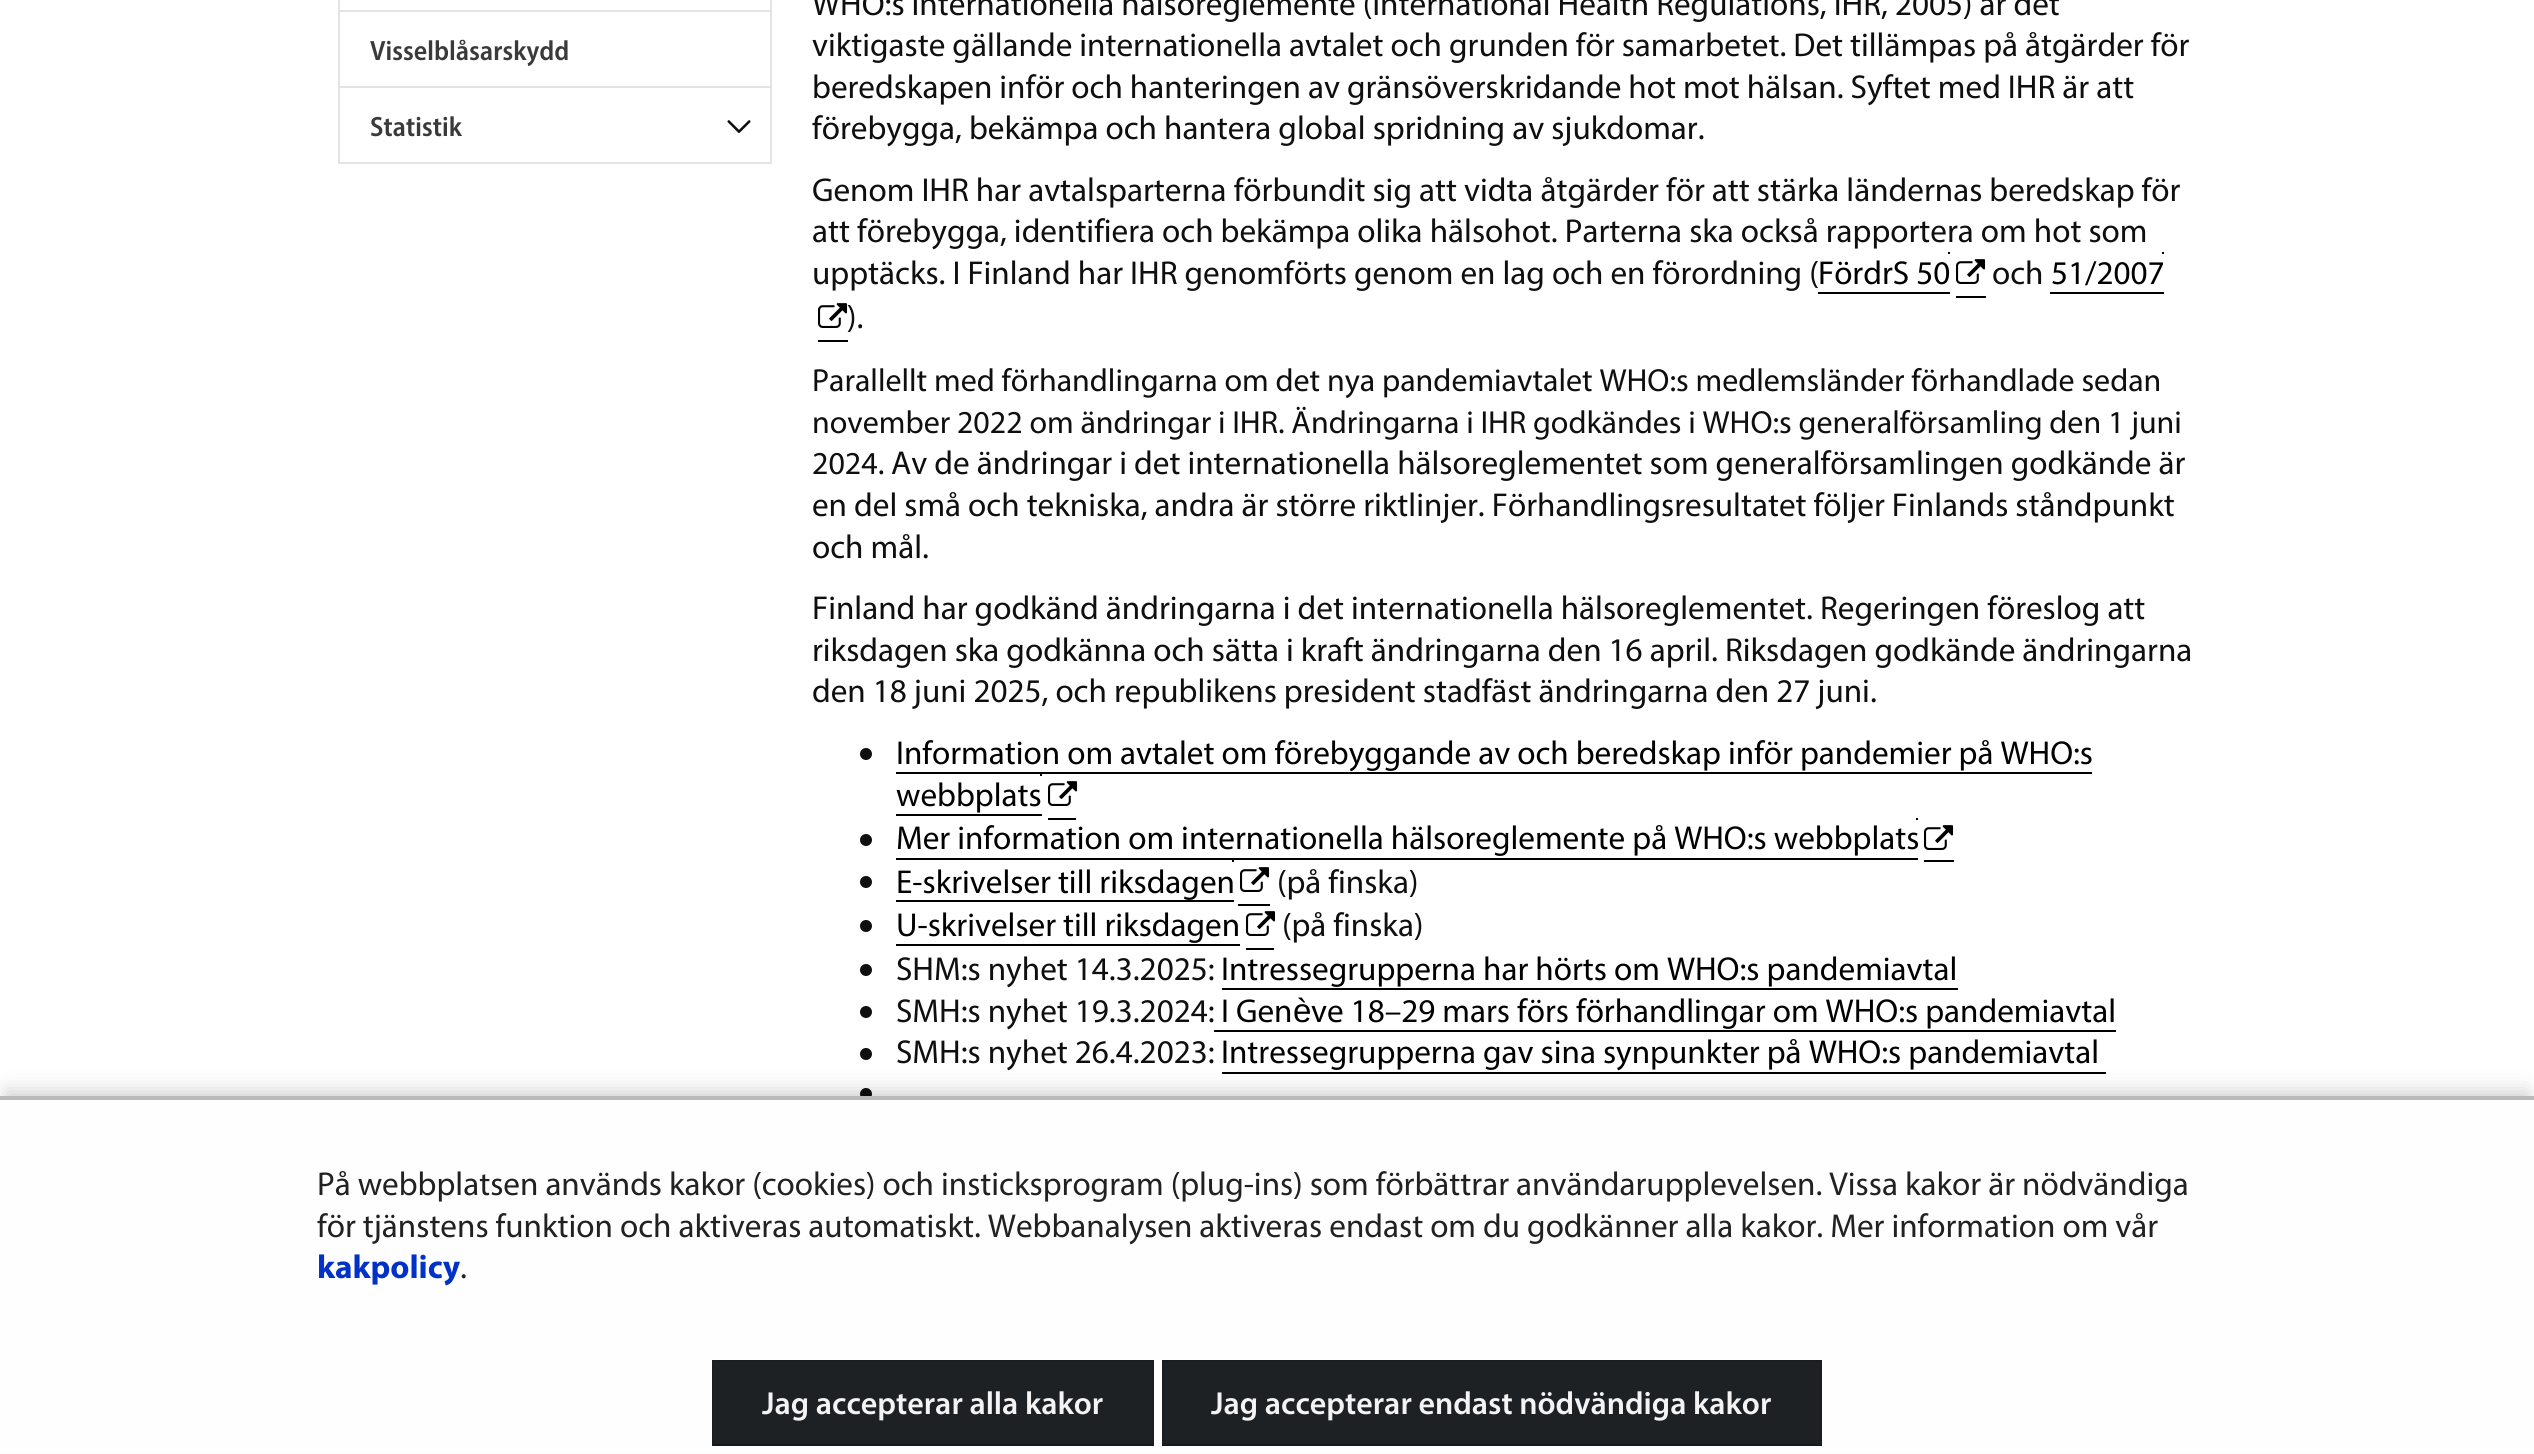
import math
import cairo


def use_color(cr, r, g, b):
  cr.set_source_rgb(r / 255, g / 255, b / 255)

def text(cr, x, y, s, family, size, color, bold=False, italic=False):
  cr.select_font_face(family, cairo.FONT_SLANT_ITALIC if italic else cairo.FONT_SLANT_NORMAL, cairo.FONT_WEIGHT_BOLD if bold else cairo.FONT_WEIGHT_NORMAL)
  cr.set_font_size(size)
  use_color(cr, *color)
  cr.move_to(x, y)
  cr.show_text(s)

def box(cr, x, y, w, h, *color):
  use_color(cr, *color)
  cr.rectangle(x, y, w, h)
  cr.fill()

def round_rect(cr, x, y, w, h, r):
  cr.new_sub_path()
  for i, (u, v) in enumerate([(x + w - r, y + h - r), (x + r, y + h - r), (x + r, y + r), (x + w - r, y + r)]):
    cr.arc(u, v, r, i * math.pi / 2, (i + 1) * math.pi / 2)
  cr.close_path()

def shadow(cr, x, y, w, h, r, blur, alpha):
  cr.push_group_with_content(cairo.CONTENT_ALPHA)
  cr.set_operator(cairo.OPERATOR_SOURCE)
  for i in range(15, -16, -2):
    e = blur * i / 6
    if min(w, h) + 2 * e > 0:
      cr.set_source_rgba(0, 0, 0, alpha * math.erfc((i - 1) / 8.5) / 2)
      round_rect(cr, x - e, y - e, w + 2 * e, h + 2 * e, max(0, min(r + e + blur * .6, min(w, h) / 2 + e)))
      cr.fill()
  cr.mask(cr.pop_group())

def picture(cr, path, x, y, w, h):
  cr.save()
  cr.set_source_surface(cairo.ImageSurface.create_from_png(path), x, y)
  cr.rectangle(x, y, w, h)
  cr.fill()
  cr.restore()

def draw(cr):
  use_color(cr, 255, 255, 255)
  cr.paint()
  box(cr, 770, 0, 2, 164, 228, 227, 228)
  box(cr, 338, 0, 2, 164, 228, 227, 228)
  box(cr, 340, 10, 430, 2, 228, 227, 228)
  box(cr, 340, 86, 430, 2, 228, 227, 228)
  picture(cr, "img_01.png", 370, 39, 198, 28)
  box(cr, 340, 162, 430, 2, 228, 227, 228)
  picture(cr, "img_02.png", 371, 116, 92, 21)
  picture(cr, "img_03.png", 727, 120, 24, 13)
  box(cr, 1818, 292, 132, 2, 0, 0, 0)
  box(cr, 1948, 252, 2, 2, 0, 0, 0)
  box(cr, 1956, 296, 30, 2, 0, 0, 0)
  picture(cr, "img_04.png", 1956, 259, 30, 25)
  box(cr, 2050, 292, 114, 2, 0, 0, 0)
  box(cr, 2162, 252, 2, 2, 0, 0, 0)
  box(cr, 818, 340, 30, 2, 0, 0, 0)
  use_color(cr, 15, 15, 15)
  cr.arc(866, 754, 6, 0, 2 * math.pi)
  cr.fill()
  box(cr, 896, 772, 1196, 2, 0, 0, 0)
  box(cr, 896, 814, 146, 2, 0, 0, 0)
  box(cr, 1040, 774, 2, 2, 0, 0, 0)
  box(cr, 1048, 818, 28, 2, 0, 0, 0)
  picture(cr, "img_04.png", 1048, 781, 30, 25)
  use_color(cr, 15, 15, 15)
  cr.arc(866, 840, 6, 0, 2 * math.pi)
  cr.fill()
  box(cr, 896, 858, 1022, 2, 0, 0, 0)
  box(cr, 1916, 818, 2, 2, 0, 0, 0)
  box(cr, 1924, 860, 30, 2, 0, 0, 0)
  picture(cr, "img_04.png", 1924, 825, 30, 25)
  use_color(cr, 15, 15, 15)
  cr.arc(866, 882, 6, 0, 2 * math.pi)
  cr.fill()
  box(cr, 896, 900, 338, 2, 0, 0, 0)
  box(cr, 1232, 860, 2, 2, 0, 0, 0)
  box(cr, 1238, 904, 32, 2, 0, 0, 0)
  picture(cr, "img_04.png", 1240, 867, 30, 25)
  use_color(cr, 15, 15, 15)
  cr.arc(866, 926, 6, 0, 2 * math.pi)
  cr.fill()
  box(cr, 896, 944, 344, 2, 0, 0, 0)
  box(cr, 1246, 948, 28, 2, 0, 0, 0)
  picture(cr, "img_04.png", 1246, 911, 30, 25)
  use_color(cr, 15, 15, 15)
  cr.arc(866, 970, 6, 0, 2 * math.pi)
  cr.fill()
  box(cr, 1222, 988, 736, 2, 0, 0, 0)
  use_color(cr, 15, 15, 15)
  cr.arc(866, 1012, 6, 0, 2 * math.pi)
  cr.fill()
  box(cr, 1214, 1030, 902, 2, 0, 0, 0)
  use_color(cr, 15, 15, 15)
  cr.arc(866, 1054, 6, 0, 2 * math.pi)
  cr.fill()
  box(cr, 1222, 1072, 884, 2, 0, 0, 0)
  use_color(cr, 15, 15, 15)
  cr.arc(866, 1094, 6, 0, 2 * math.pi)
  cr.fill()
  use_color(cr, 0, 0, 0)
  shadow(cr, 6, 1092, 2522, 346, 0, 10, 0.2)
  box(cr, 0, 1100, 2534, 353, 254, 254, 254)
  box(cr, 0, 1096, 2534, 4, 186, 186, 186)
  box(cr, 712, 1360, 442, 86, 29, 33, 36)
  use_color(cr, 26, 30, 32)
  cr.new_path()
  cr.move_to(712, 1360)
  cr.line_to(1154, 1360)
  cr.line_to(1152, 1362)
  cr.line_to(714, 1362)
  cr.close_path()
  cr.fill()
  cr.new_path()
  cr.move_to(1154, 1360)
  cr.line_to(1154, 1446)
  cr.line_to(1152, 1444)
  cr.line_to(1152, 1362)
  cr.close_path()
  cr.fill()
  use_color(cr, 22, 25, 27)
  cr.new_path()
  cr.move_to(1154, 1446)
  cr.line_to(712, 1446)
  cr.line_to(714, 1444)
  cr.line_to(1152, 1444)
  cr.close_path()
  cr.fill()
  cr.set_source_rgba(0, 0, 0, 0.1)
  cr.new_path()
  cr.move_to(712, 1446)
  cr.line_to(712, 1360)
  cr.line_to(714, 1362)
  cr.line_to(714, 1444)
  cr.close_path()
  cr.fill()
  box(cr, 1162, 1360, 660, 86, 29, 33, 36)
  use_color(cr, 26, 30, 32)
  cr.new_path()
  cr.move_to(1162, 1360)
  cr.line_to(1822, 1360)
  cr.line_to(1820, 1362)
  cr.line_to(1164, 1362)
  cr.close_path()
  cr.fill()
  cr.new_path()
  cr.move_to(1822, 1360)
  cr.line_to(1822, 1446)
  cr.line_to(1820, 1444)
  cr.line_to(1820, 1362)
  cr.close_path()
  cr.fill()
  use_color(cr, 22, 25, 27)
  cr.new_path()
  cr.move_to(1822, 1446)
  cr.line_to(1162, 1446)
  cr.line_to(1164, 1444)
  cr.line_to(1820, 1444)
  cr.close_path()
  cr.fill()
  cr.set_source_rgba(0, 0, 0, 0.1)
  cr.new_path()
  cr.move_to(1162, 1446)
  cr.line_to(1162, 1360)
  cr.line_to(1164, 1362)
  cr.line_to(1164, 1444)
  cr.close_path()
  cr.fill()
  text(cr, 812, 15, "WHO:s internationella hälsoreglemente (International Health Regulations, IHR, 2005) är det", "Myriad", 33.18, (15, 15, 15))
  text(cr, 812, 56, "viktigaste gällande internationella avtalet och grunden för samarbetet. Det tillämpas på åtgärder för", "Myriad", 33.18, (15, 15, 15))
  text(cr, 812, 98, "beredskapen inför och hanteringen av gränsöverskridande hot mot hälsan. Syftet med IHR är att", "Myriad", 33.18, (15, 15, 15))
  text(cr, 812, 139, "förebygga, bekämpa och hantera global spridning av sjukdomar.", "Myriad", 33.18, (15, 15, 15))
  text(cr, 812, 201, "Genom IHR har avtalsparterna förbundit sig att vidta åtgärder för att stärka ländernas beredskap för", "Myriad", 33.18, (15, 15, 15))
  text(cr, 812, 242, "att förebygga, identifiera och bekämpa olika hälsohot. Parterna ska också rapportera om hot som", "Myriad", 33.18, (15, 15, 15))
  text(cr, 812, 284, "upptäcks. I Finland har IHR genomförts genom en lag och en förordning (", "Myriad", 33.18, (15, 15, 15))
  text(cr, 1818, 284, "FördrS 50", "Myriad", 33.18, (0, 0, 0))
  text(cr, 1992, 284, "och", "Myriad", 33.18, (15, 15, 15))
  text(cr, 2051, 284, "51/2007", "Myriad", 33.18, (0, 0, 0))
  text(cr, 847, 328, ").", "Myriad", 33.18, (15, 15, 15))
  picture(cr, "img_05.png", 818, 303, 30, 25)
  text(cr, 812, 391, "Parallellt med förhandlingarna om det nya pandemiavtalet WHO:s medlemsländer förhandlade sedan", "Myriad", 32, (15, 15, 15))
  text(cr, 812, 433, "november 2022 om ändringar i IHR. Ändringarna i IHR godkändes i WHO:s generalförsamling den 1 juni", "Myriad", 32, (15, 15, 15))
  text(cr, 812, 474, "2024.", "Myriad", 32, (15, 15, 15))
  text(cr, 891, 474, "Av de ändringar i det internationella hälsoreglementet som generalförsamlingen godkände är", "Myriad", 33.18, (15, 15, 15))
  text(cr, 812, 516, "en del små och tekniska, andra är större riktlinjer. Förhandlingsresultatet följer Finlands ståndpunkt", "Myriad", 33.18, (15, 15, 15))
  text(cr, 812, 558, "och mål.", "Myriad", 33.18, (15, 15, 15))
  text(cr, 812, 619, "Finland har godkänd ändringarna i det internationella hälsoreglementet. Regeringen föreslog att", "Myriad", 33.18, (15, 15, 15))
  text(cr, 812, 661, "riksdagen ska godkänna och sätta i kraft ändringarna den 16 april. Riksdagen godkände ändringarna", "Myriad", 33.18, (15, 15, 15))
  text(cr, 812, 702, "den 18 juni 2025, och republikens president stadfäst ändringarna den 27 juni.", "Myriad", 33.18, (15, 15, 15))
  text(cr, 896, 764, "Information om avtalet om förebyggande av och beredskap inför pandemier på WHO:s", "Myriad", 33.18, (0, 0, 0))
  text(cr, 896, 806, "webbplats", "Myriad", 33.18, (0, 0, 0))
  text(cr, 896, 849, "Mer information om internationella hälsoreglemente på WHO:s webbplats", "Myriad", 33.18, (0, 0, 0))
  text(cr, 896, 893, "E-skrivelser till riksdagen", "Myriad", 33.18, (0, 0, 0))
  text(cr, 1277, 893, "(på finska)", "Myriad", 33.18, (15, 15, 15))
  text(cr, 896, 936, "U-skrivelser till riksdagen", "Myriad", 33.18, (0, 0, 0))
  text(cr, 1282, 936, "(på finska)", "Myriad", 33.18, (15, 15, 15))
  text(cr, 896, 980, "SHM:s nyhet 14.3.2025:", "Myriad", 33.18, (15, 15, 15))
  text(cr, 1221, 980, "Intressegrupperna har hörts om WHO:s pandemiavtal", "Myriad", 33.18, (0, 0, 0))
  text(cr, 896, 1022, "SMH:s nyhet 19.3.2024:", "Myriad", 33.18, (15, 15, 15))
  text(cr, 1221, 1022, "I Gen", "Myriad", 33.18, (0, 0, 0))
  text(cr, 1293, 1022, "è", "Liberation Sans", 33.18, (0, 0, 0))
  text(cr, 1311, 1022, "ve 18–29 mars förs förhandlingar om WHO:s pandemiavtal", "Myriad", 33.18, (0, 0, 0))
  text(cr, 896, 1063, "SMH:s nyhet 26.4.2023:", "Myriad", 33.18, (15, 15, 15))
  text(cr, 1221, 1063, "Intressegrupperna gav sina synpunkter på WHO:s pandemiavtal", "Myriad", 33.18, (0, 0, 0))
  text(cr, 317, 1195, "På webbplatsen används kakor (cookies) och insticksprogram (plug-ins) som förbättrar användarupplevelsen. Vissa kakor är nödvändiga", "Myriad", 33.18, (33, 33, 33))
  text(cr, 317, 1237, "för tjänstens funktion och aktiveras automatiskt. Webbanalysen aktiveras endast om du godkänner alla kakor. Mer information om vår", "Myriad", 33.18, (33, 33, 33))
  text(cr, 317, 1278, "kakpolicy", "Myriad", 33.18, (0, 50, 200), bold=True)
  text(cr, 460, 1278, ".", "Myriad", 33.18, (33, 33, 33))
  text(cr, 762, 1414, "Jag accepterar alla kakor", "Myriad SemiBold", 32, (244, 243, 244))
  text(cr, 1211, 1414, "Jag accepterar endast nödvändiga kakor", "Myriad SemiBold", 32, (244, 243, 244))


surface = cairo.ImageSurface(cairo.FORMAT_RGB24, 2534, 1454)
cr = cairo.Context(surface)
options = cairo.FontOptions()
options.set_hint_metrics(cairo.HINT_METRICS_OFF)
options.set_hint_style(cairo.HINT_STYLE_NONE)
cr.set_font_options(options)
cr.set_miter_limit(4)
draw(cr)
surface.write_to_png("out.png")
